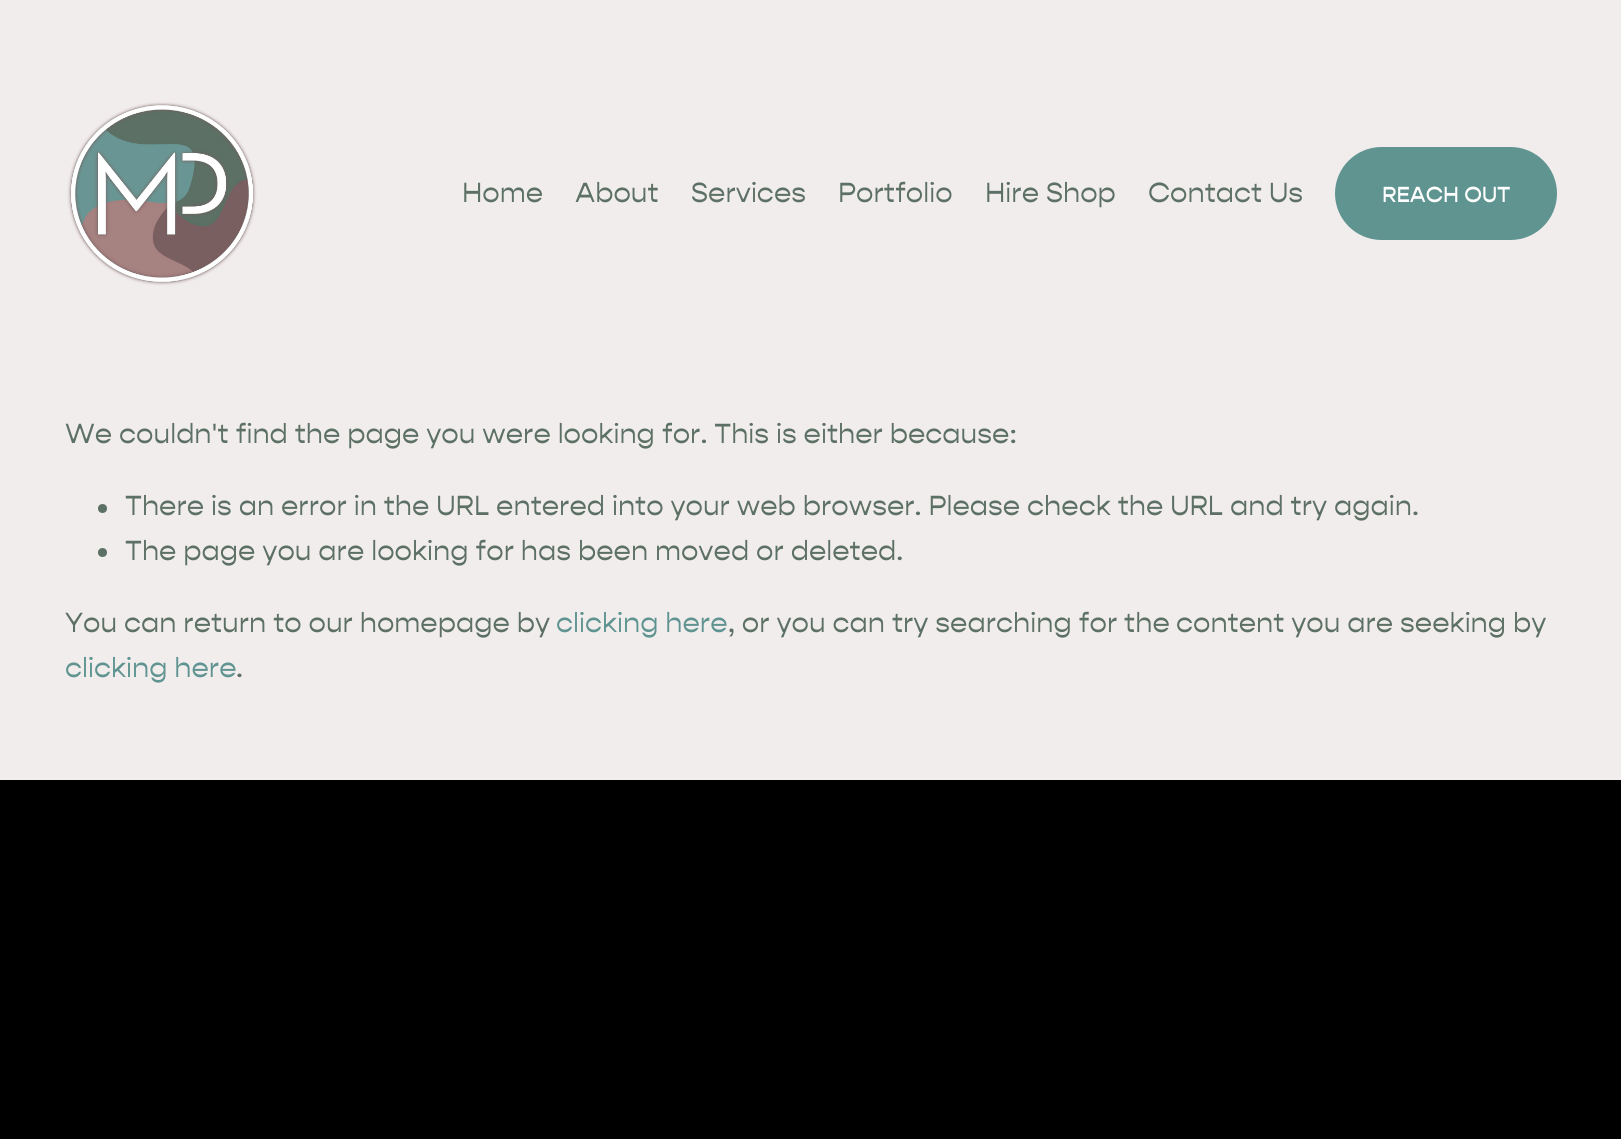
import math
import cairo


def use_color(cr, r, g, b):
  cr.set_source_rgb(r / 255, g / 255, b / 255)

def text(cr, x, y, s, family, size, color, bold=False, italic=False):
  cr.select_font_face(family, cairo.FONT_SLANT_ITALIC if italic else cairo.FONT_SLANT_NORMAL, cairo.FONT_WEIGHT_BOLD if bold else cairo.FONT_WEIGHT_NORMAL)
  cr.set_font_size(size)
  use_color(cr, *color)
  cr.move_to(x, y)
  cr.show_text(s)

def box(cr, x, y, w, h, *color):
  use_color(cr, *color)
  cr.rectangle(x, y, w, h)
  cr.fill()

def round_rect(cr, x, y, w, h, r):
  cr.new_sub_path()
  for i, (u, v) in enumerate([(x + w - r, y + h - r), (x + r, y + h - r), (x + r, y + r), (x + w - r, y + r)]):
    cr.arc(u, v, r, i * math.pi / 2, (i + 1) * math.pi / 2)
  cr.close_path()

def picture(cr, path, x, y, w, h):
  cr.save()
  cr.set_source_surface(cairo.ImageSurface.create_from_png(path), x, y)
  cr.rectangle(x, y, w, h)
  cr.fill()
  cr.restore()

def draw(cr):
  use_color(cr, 242, 237, 237)
  cr.paint()
  picture(cr, "img_01.png", 67, 102, 190, 184)
  use_color(cr, 95, 148, 145)
  round_rect(cr, 1335, 147, 222, 93, 46.5)
  cr.fill()
  use_color(cr, 92, 112, 101)
  cr.arc(102.5, 508.5, 4.5, 0, 2 * math.pi)
  cr.fill()
  cr.arc(102.5, 552.5, 4.5, 0, 2 * math.pi)
  cr.fill()
  box(cr, 0, 780, 1621, 359, 0, 0, 0)
  text(cr, 462, 202, "Home", "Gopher", 27.9, (92, 112, 101))
  text(cr, 575, 202, "About", "Gopher", 27.9, (92, 112, 101))
  text(cr, 691, 202, "Services", "Gopher", 27.9, (92, 112, 101))
  text(cr, 838, 202, "Portfolio", "Gopher", 27.9, (92, 112, 101))
  text(cr, 985, 202, "Hire Shop", "Gopher", 27.9, (92, 112, 101))
  text(cr, 1148, 202, "Contact Us", "Gopher", 27.9, (92, 112, 101))
  text(cr, 1382, 202, "REACH OUT", "Gopher Medium", 22, (255, 255, 255))
  text(cr, 65, 443, "We couldn't find the page you were looking for. This is either because:", "Gopher", 27.9, (92, 112, 101))
  text(cr, 125, 515, "There is an error in the URL entered into your web browser. Please check the URL and try again.", "Gopher", 27.9, (92, 112, 101))
  text(cr, 125, 560, "The page you are looking for has been moved or deleted.", "Gopher", 27.9, (92, 112, 101))
  text(cr, 65, 632, "You can return to our homepage by", "Gopher", 27.9, (92, 112, 101))
  text(cr, 556, 632, "clicking here", "Gopher", 27.9, (95, 148, 145))
  text(cr, 728, 632, ", or you can try searching for the", "Gopher", 27.9, (92, 112, 101))
  text(cr, 1176, 632, "content you are seeking by", "Gopher", 27.9, (92, 112, 101))
  text(cr, 65, 677, "clicking here", "Gopher", 27.9, (95, 148, 145))
  text(cr, 236, 677, ".", "Gopher", 27.9, (92, 112, 101))


surface = cairo.ImageSurface(cairo.FORMAT_RGB24, 1621, 1139)
cr = cairo.Context(surface)
options = cairo.FontOptions()
options.set_hint_metrics(cairo.HINT_METRICS_OFF)
options.set_hint_style(cairo.HINT_STYLE_NONE)
cr.set_font_options(options)
cr.set_miter_limit(4)
draw(cr)
surface.write_to_png("out.png")
